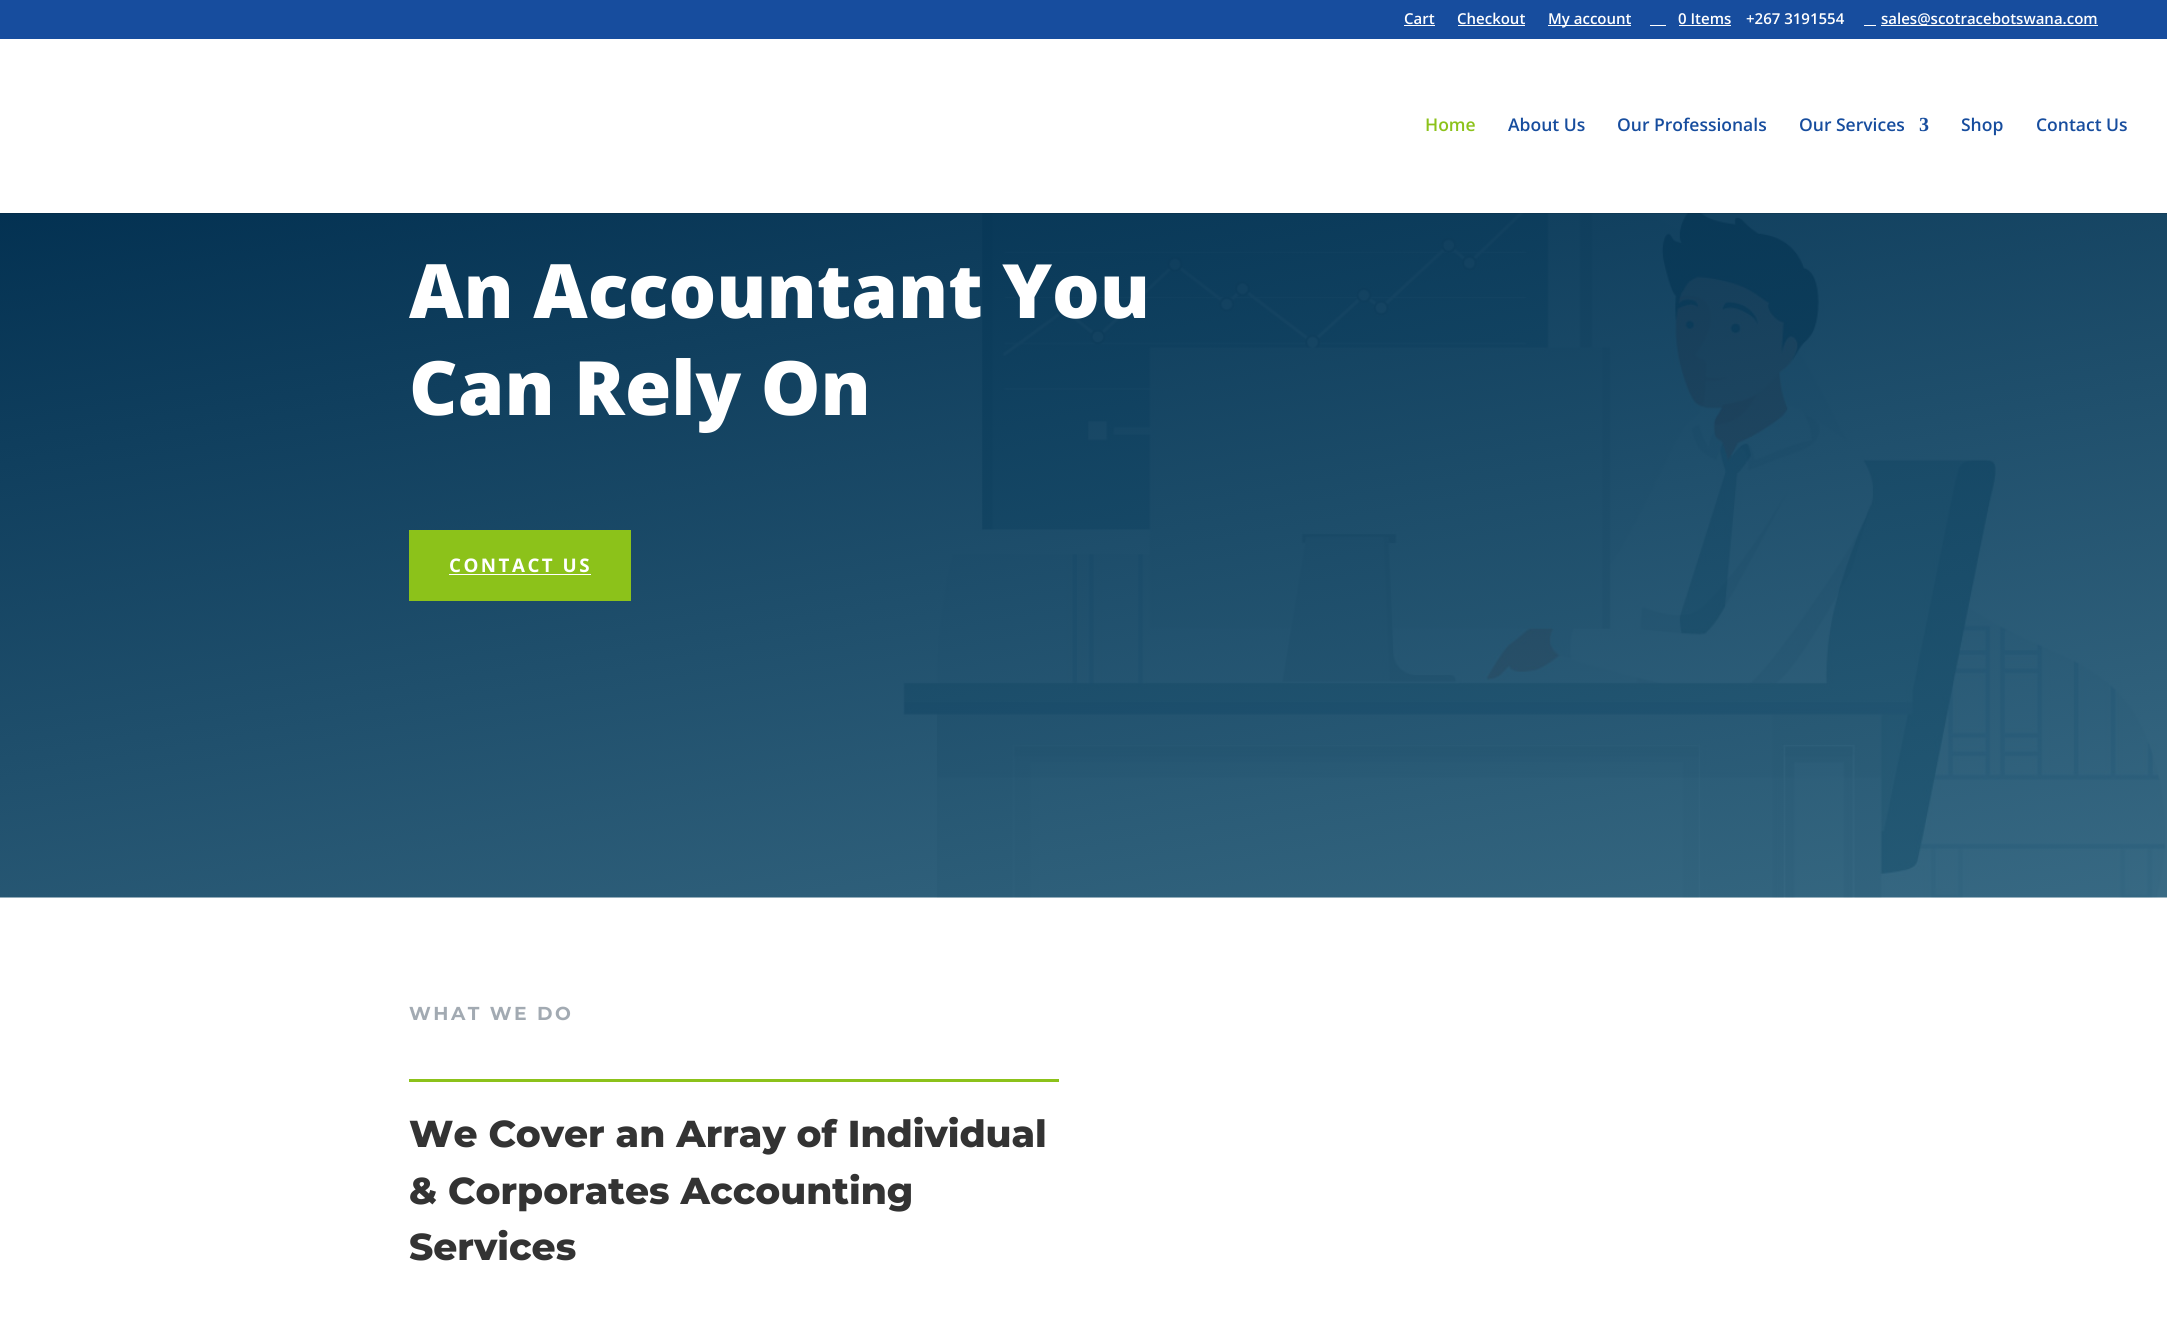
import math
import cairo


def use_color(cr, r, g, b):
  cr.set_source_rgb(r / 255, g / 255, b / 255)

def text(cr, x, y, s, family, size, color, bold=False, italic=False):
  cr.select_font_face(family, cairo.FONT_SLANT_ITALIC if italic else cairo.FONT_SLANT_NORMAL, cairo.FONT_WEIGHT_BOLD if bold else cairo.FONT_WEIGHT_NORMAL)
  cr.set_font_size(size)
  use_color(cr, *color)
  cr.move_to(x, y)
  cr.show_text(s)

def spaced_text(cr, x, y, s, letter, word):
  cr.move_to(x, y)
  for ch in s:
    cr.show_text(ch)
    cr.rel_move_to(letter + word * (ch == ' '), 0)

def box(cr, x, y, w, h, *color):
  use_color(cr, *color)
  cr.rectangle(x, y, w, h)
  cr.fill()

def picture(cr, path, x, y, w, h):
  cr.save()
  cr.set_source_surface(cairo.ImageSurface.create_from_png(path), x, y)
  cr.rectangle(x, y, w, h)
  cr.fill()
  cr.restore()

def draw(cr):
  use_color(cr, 255, 255, 255)
  cr.paint()
  box(cr, 0, 0, 2167, 39, 23, 77, 158)
  box(cr, 1404, 25, 31, 1, 255, 255, 255)
  box(cr, 1458, 25, 67, 1, 255, 255, 255)
  box(cr, 1548, 25, 83, 1, 255, 255, 255)
  box(cr, 1650, 25, 16, 1, 255, 255, 255)
  box(cr, 1679, 25, 52, 1, 255, 255, 255)
  box(cr, 1864, 25, 12, 1, 255, 255, 255)
  box(cr, 1881, 25, 217, 1, 255, 255, 255)
  picture(cr, "img_01.png", 0, 213, 2167, 685)
  cr.set_source_rgba(0, 0, 0, 0.1)
  cr.new_path()
  cr.move_to(0, 212)
  cr.line_to(0, 214)
  cr.line_to(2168, 214)
  cr.line_to(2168, 39)
  cr.line_to(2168, 212)
  cr.close_path()
  cr.fill()
  box(cr, 0, 212, 2167, 1, 255, 255, 255)
  box(cr, 409, 530, 222, 71, 140, 194, 26)
  box(cr, 449, 574, 142, 1, 255, 255, 255)
  box(cr, 409, 1079, 650, 3, 140, 194, 26)
  text(cr, 1404, 24, "Cart", "Open Sans SemiBold", 15, (255, 255, 255))
  text(cr, 1457, 24, "Checkout", "Open Sans SemiBold", 15, (255, 255, 255))
  text(cr, 1548, 24, "My account", "Open Sans SemiBold", 15, (255, 255, 255))
  text(cr, 1678, 24, "0 Items", "Open Sans SemiBold", 15, (255, 255, 255))
  text(cr, 1746, 24, "+267 3191554", "Open Sans SemiBold", 15, (255, 255, 255))
  text(cr, 1881, 24, "sales@scotracebotswana.com", "Open Sans SemiBold", 15, (255, 255, 255))
  text(cr, 1425, 131, "Home", "Open Sans SemiBold", 17.5, (140, 194, 26))
  text(cr, 1508, 131, "About Us", "Open Sans SemiBold", 17.5, (23, 77, 158))
  text(cr, 1617, 131, "Our Professionals", "Open Sans SemiBold", 17.5, (23, 77, 158))
  text(cr, 1799, 131, "Our Services", "Open Sans SemiBold", 17.5, (23, 77, 158))
  text(cr, 1919, 131, "3", "Liberation Serif", 20, (23, 77, 158), bold=True)
  text(cr, 1961, 131, "Shop", "Open Sans SemiBold", 17.5, (23, 77, 158))
  text(cr, 2036, 131, "Contact Us", "Open Sans SemiBold", 17.5, (23, 77, 158))
  text(cr, 409, 318, "An Accountant You", "Open Sans ExtraBold", 75, (255, 255, 255))
  text(cr, 409, 415, "Can Rely On", "Open Sans ExtraBold", 75, (255, 255, 255))
  cr.select_font_face("Open Sans", cairo.FONT_SLANT_NORMAL, cairo.FONT_WEIGHT_BOLD)
  cr.set_font_size(18.75)
  spaced_text(cr, 449, 572, "CONTACT US", 2.5, 0)
  cr.select_font_face("Montserrat", cairo.FONT_SLANT_NORMAL, cairo.FONT_WEIGHT_BOLD)
  use_color(cr, 162, 170, 178)
  spaced_text(cr, 409, 1020, "WHAT WE DO", 2.5, 0)
  text(cr, 409, 1147, "We Cover an Array of Individual", "Montserrat ExtraBold", 37.5, (51, 51, 51))
  text(cr, 409, 1204, "& Corporates Accounting", "Montserrat ExtraBold", 37.5, (51, 51, 51))
  text(cr, 409, 1260, "Services", "Montserrat ExtraBold", 37.5, (51, 51, 51))


surface = cairo.ImageSurface(cairo.FORMAT_RGB24, 2167, 1337)
cr = cairo.Context(surface)
options = cairo.FontOptions()
options.set_hint_metrics(cairo.HINT_METRICS_OFF)
options.set_hint_style(cairo.HINT_STYLE_NONE)
cr.set_font_options(options)
cr.set_miter_limit(4)
draw(cr)
surface.write_to_png("out.png")
